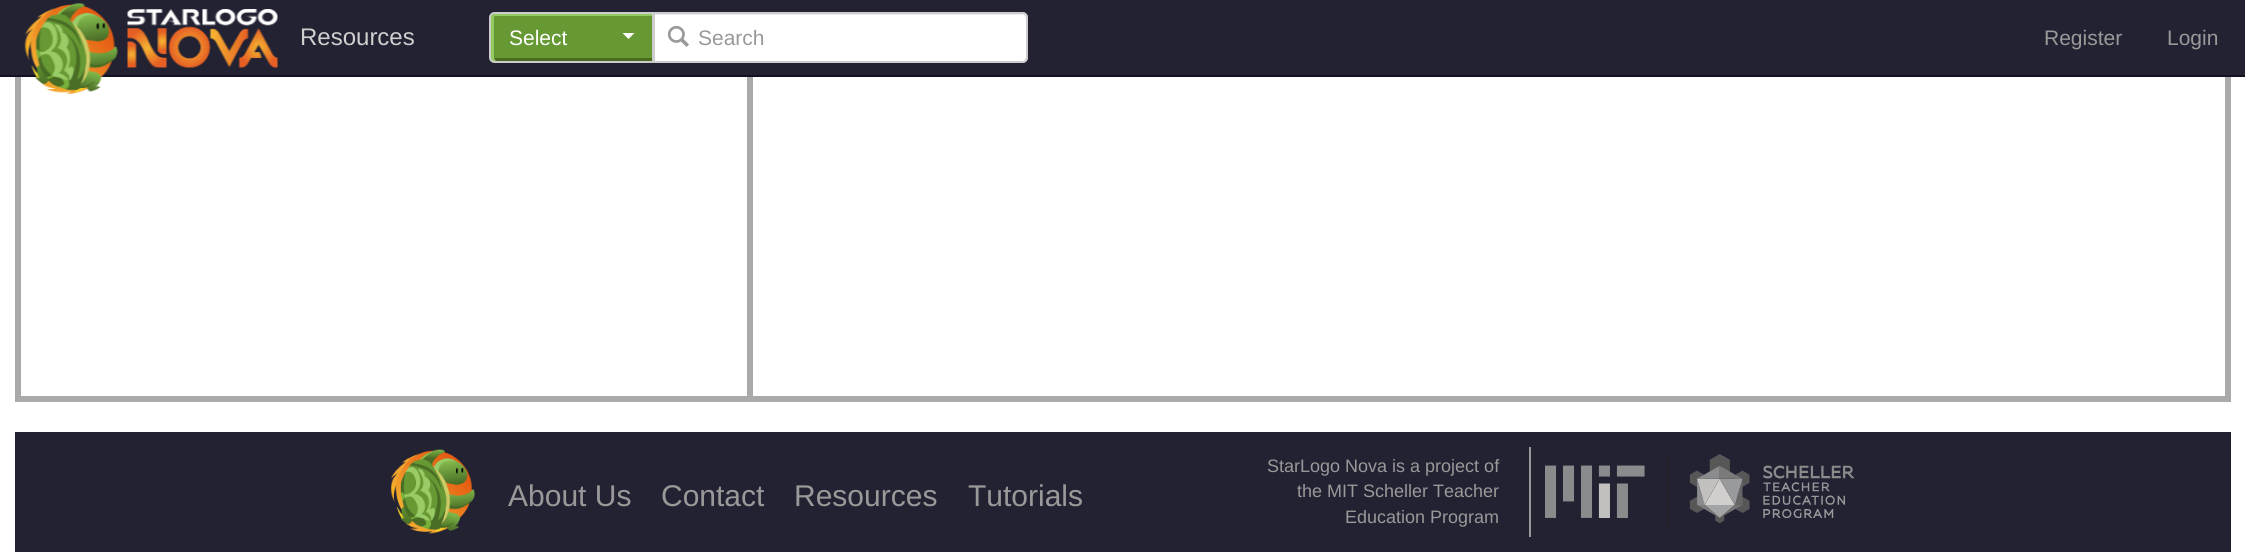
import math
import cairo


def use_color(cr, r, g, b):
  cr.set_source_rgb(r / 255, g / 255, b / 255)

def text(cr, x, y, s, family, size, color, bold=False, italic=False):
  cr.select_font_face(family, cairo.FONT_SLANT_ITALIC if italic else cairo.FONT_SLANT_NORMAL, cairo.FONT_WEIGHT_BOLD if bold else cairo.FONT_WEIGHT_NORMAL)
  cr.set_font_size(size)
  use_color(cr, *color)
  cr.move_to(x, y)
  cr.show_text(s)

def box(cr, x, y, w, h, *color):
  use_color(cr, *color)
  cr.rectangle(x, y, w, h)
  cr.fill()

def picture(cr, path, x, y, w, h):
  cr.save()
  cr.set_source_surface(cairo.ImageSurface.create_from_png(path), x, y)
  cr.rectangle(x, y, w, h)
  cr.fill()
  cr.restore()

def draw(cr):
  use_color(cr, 255, 255, 255)
  cr.paint()
  cr.rectangle(18, -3, 732, 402)
  use_color(cr, 170, 170, 170)
  cr.set_line_width(6)
  cr.stroke()
  box(cr, 2225, 77, 6, 325, 170, 170, 170)
  box(cr, 753, 396, 1478, 6, 170, 170, 170)
  box(cr, 0, 0, 2245, 75, 34, 34, 51)
  box(cr, 0, 75, 2245, 2, 17, 17, 34)
  picture(cr, "img_01.png", 24, 2, 94, 92)
  picture(cr, "img_02.png", 127, 9, 151, 59)
  use_color(cr, 255, 255, 255)
  cr.new_path()
  cr.move_to(653, 12)
  cr.line_to(1022, 12)
  cr.curve_to(1025.5, 12, 1028, 14.5, 1028, 18)
  cr.line_to(1028, 57)
  cr.curve_to(1028, 60.5, 1025.5, 63, 1022, 63)
  cr.line_to(653, 63)
  cr.close_path()
  cr.fill()
  use_color(cr, 236, 236, 236)
  cr.new_path()
  cr.move_to(654, 15)
  cr.line_to(1022, 15)
  cr.curve_to(1024, 15, 1026, 17, 1026, 20)
  cr.line_to(1026, 19)
  cr.curve_to(1026, 16, 1024, 14, 1021, 14)
  cr.line_to(654, 14)
  cr.close_path()
  cr.fill()
  cr.new_path()
  cr.move_to(654, 13)
  cr.line_to(1022, 13)
  cr.curve_to(1025, 13, 1027, 15, 1027, 18)
  cr.line_to(1027, 57)
  cr.curve_to(1027, 60, 1025, 62, 1022, 62)
  cr.line_to(654, 62)
  cr.close_path()
  use_color(cr, 204, 204, 204)
  cr.set_line_width(2)
  cr.stroke()
  use_color(cr, 102, 153, 51)
  cr.new_path()
  cr.move_to(495, 12)
  cr.line_to(654, 12)
  cr.line_to(654, 63)
  cr.line_to(495, 63)
  cr.curve_to(491.5, 63, 489, 60.5, 489, 57)
  cr.line_to(489, 18)
  cr.curve_to(489, 14.5, 491.5, 12, 495, 12)
  cr.close_path()
  cr.fill()
  use_color(cr, 77, 107, 31)
  cr.new_path()
  cr.move_to(491, 56)
  cr.line_to(491, 57)
  cr.curve_to(491, 60, 493, 62, 496, 62)
  cr.line_to(653, 62)
  cr.line_to(653, 14)
  cr.line_to(652, 14)
  cr.line_to(652, 58)
  cr.line_to(495, 58)
  cr.close_path()
  cr.fill()
  use_color(cr, 149, 202, 97)
  cr.new_path()
  cr.move_to(495, 16)
  cr.line_to(652, 16)
  cr.line_to(652, 62)
  cr.line_to(653, 62)
  cr.line_to(653, 14)
  cr.line_to(496, 14)
  cr.curve_to(493, 14, 491, 16, 491, 19)
  cr.curve_to(492, 17, 494, 16, 495, 16)
  cr.close_path()
  cr.fill()
  cr.new_path()
  cr.move_to(496, 14)
  cr.curve_to(493, 14, 491, 16, 491, 19)
  cr.line_to(491, 57)
  cr.curve_to(491, 60, 493, 62, 496, 62)
  cr.line_to(498, 62)
  cr.curve_to(496, 62, 494, 59, 494, 57)
  cr.line_to(494, 18)
  cr.curve_to(494, 16, 496, 14, 498, 14)
  cr.close_path()
  cr.fill()
  cr.new_path()
  cr.move_to(495, 13)
  cr.line_to(653, 13)
  cr.line_to(653, 62)
  cr.line_to(495, 62)
  cr.curve_to(492, 62, 490, 60, 490, 57)
  cr.line_to(490, 18)
  cr.curve_to(490, 15, 492, 13, 495, 13)
  cr.close_path()
  use_color(cr, 204, 204, 204)
  cr.stroke()
  use_color(cr, 255, 255, 255)
  cr.new_path()
  cr.move_to(622.5, 33)
  cr.line_to(634.5, 33)
  cr.line_to(628.5, 39)
  cr.close_path()
  cr.fill()
  picture(cr, "img_03.png", 667, 25, 22, 22)
  box(cr, 15, 432, 2216, 120, 34, 34, 51)
  picture(cr, "img_04.png", 391, 449, 84, 85)
  box(cr, 1529, 447, 2, 90, 153, 153, 153)
  picture(cr, "img_05.png", 1545, 454, 310, 75)
  text(cr, 300, 45, "Resources", "Liberation Sans", 24, (207, 207, 207))
  text(cr, 509, 45, "Select", "Liberation Sans", 21, (255, 255, 255))
  text(cr, 698, 45, "Search", "Liberation Sans", 21, (153, 153, 153))
  text(cr, 2044, 45, "Register", "Liberation Sans", 21, (153, 153, 153))
  text(cr, 2167, 45, "Login", "Liberation Sans", 21, (153, 153, 153))
  text(cr, 508, 506, "About Us", "Liberation Sans", 30, (153, 153, 153))
  text(cr, 661, 506, "Contact", "Liberation Sans", 30, (153, 153, 153))
  text(cr, 794, 506, "Resources", "Liberation Sans", 30, (153, 153, 153))
  text(cr, 968, 506, "Tutorials", "Liberation Sans", 30, (153, 153, 153))
  text(cr, 1267, 472, "StarLogo Nova is a project of", "Liberation Sans", 18, (153, 153, 153))
  text(cr, 1297, 497, "the MIT Scheller Teacher", "Liberation Sans", 18, (153, 153, 153))
  text(cr, 1345, 523, "Education Program", "Liberation Sans", 18, (153, 153, 153))


surface = cairo.ImageSurface(cairo.FORMAT_RGB24, 2245, 552)
cr = cairo.Context(surface)
options = cairo.FontOptions()
options.set_hint_metrics(cairo.HINT_METRICS_OFF)
options.set_hint_style(cairo.HINT_STYLE_NONE)
cr.set_font_options(options)
cr.set_miter_limit(4)
draw(cr)
surface.write_to_png("out.png")
